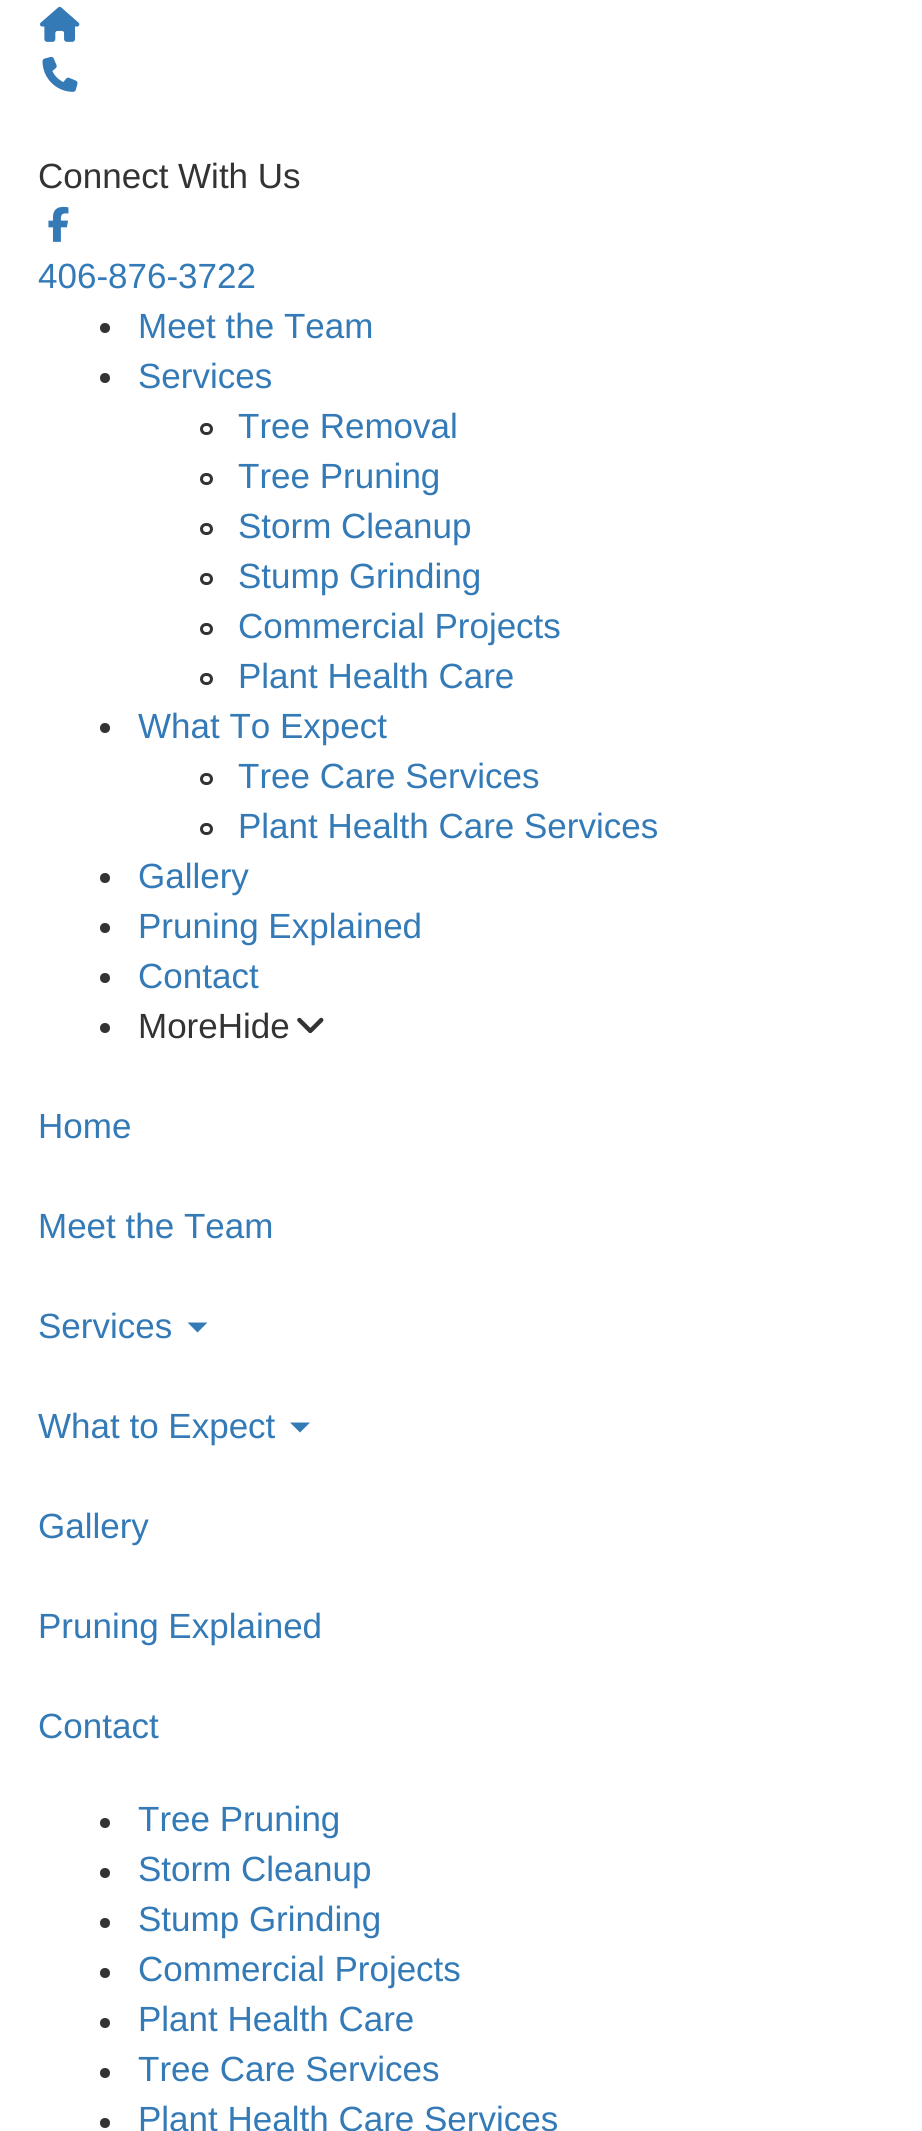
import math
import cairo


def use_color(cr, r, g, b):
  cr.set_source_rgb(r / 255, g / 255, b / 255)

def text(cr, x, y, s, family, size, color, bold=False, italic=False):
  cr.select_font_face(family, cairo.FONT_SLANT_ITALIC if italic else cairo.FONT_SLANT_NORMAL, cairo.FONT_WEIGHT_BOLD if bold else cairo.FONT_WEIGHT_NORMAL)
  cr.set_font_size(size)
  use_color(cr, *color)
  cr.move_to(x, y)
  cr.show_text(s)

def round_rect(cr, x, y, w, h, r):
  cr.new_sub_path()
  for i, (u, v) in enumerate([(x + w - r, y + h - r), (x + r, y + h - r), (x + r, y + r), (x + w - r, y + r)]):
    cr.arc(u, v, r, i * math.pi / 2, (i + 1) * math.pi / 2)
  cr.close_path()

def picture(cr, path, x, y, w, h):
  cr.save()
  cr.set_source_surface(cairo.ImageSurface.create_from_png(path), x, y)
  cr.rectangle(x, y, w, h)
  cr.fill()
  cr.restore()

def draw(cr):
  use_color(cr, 255, 255, 255)
  cr.paint()
  picture(cr, "img_01.png", 40, 6, 40, 36)
  picture(cr, "img_02.png", 42, 56, 36, 36)
  picture(cr, "img_03.png", 48, 206, 21, 36)
  use_color(cr, 51, 51, 51)
  cr.arc(105, 328, 5, 0, 2 * math.pi)
  cr.fill()
  cr.arc(105, 378, 5, 0, 2 * math.pi)
  cr.fill()
  round_rect(cr, 201.5, 424.5, 10, 9, 4.5)
  cr.set_line_width(3)
  cr.stroke()
  round_rect(cr, 201.5, 474.5, 10, 9, 4.5)
  cr.stroke()
  round_rect(cr, 201.5, 524.5, 10, 9, 4.5)
  cr.stroke()
  round_rect(cr, 201.5, 574.5, 10, 9, 4.5)
  cr.stroke()
  round_rect(cr, 201.5, 624.5, 10, 9, 4.5)
  cr.stroke()
  round_rect(cr, 201.5, 674.5, 10, 9, 4.5)
  cr.stroke()
  cr.arc(105, 728, 5, 0, 2 * math.pi)
  cr.fill()
  round_rect(cr, 201.5, 774.5, 10, 9, 4.5)
  cr.stroke()
  round_rect(cr, 201.5, 824.5, 10, 9, 4.5)
  cr.stroke()
  cr.arc(105, 878, 5, 0, 2 * math.pi)
  cr.fill()
  cr.arc(105, 928, 5, 0, 2 * math.pi)
  cr.fill()
  cr.arc(105, 978, 5, 0, 2 * math.pi)
  cr.fill()
  cr.arc(105, 1028, 5, 0, 2 * math.pi)
  cr.fill()
  picture(cr, "img_04.png", 297, 1017, 27, 17)
  use_color(cr, 51, 122, 183)
  cr.new_path()
  cr.move_to(187.5, 1322.5)
  cr.line_to(207.5, 1322.5)
  cr.line_to(197.5, 1332.5)
  cr.close_path()
  cr.fill()
  cr.new_path()
  cr.move_to(290, 1422.5)
  cr.line_to(310, 1422.5)
  cr.line_to(300, 1432.5)
  cr.close_path()
  cr.fill()
  use_color(cr, 51, 51, 51)
  cr.arc(105, 1823, 5, 0, 2 * math.pi)
  cr.fill()
  cr.arc(105, 1873, 5, 0, 2 * math.pi)
  cr.fill()
  cr.arc(105, 1923, 5, 0, 2 * math.pi)
  cr.fill()
  cr.arc(105, 1973, 5, 0, 2 * math.pi)
  cr.fill()
  cr.arc(105, 2023, 5, 0, 2 * math.pi)
  cr.fill()
  cr.arc(105, 2073, 5, 0, 2 * math.pi)
  cr.fill()
  cr.arc(105, 2123, 5, 0, 2 * math.pi)
  cr.fill()
  text(cr, 38, 188, "Connect With Us", "Liberation Sans", 35, (51, 51, 51))
  text(cr, 38, 288, "406-876-3722", "Liberation Sans", 35, (51, 122, 183))
  text(cr, 138, 338, "Meet the Team", "Liberation Sans", 35, (51, 122, 183))
  text(cr, 138, 388, "Services", "Liberation Sans", 35, (51, 122, 183))
  text(cr, 238, 438, "Tree Removal", "Liberation Sans", 35, (51, 122, 183))
  text(cr, 238, 488, "Tree Pruning", "Liberation Sans", 35, (51, 122, 183))
  text(cr, 238, 538, "Storm Cleanup", "Liberation Sans", 35, (51, 122, 183))
  text(cr, 238, 588, "Stump Grinding", "Liberation Sans", 35, (51, 122, 183))
  text(cr, 238, 638, "Commercial Projects", "Liberation Sans", 35, (51, 122, 183))
  text(cr, 238, 688, "Plant Health Care", "Liberation Sans", 35, (51, 122, 183))
  text(cr, 138, 738, "What To Expect", "Liberation Sans", 35, (51, 122, 183))
  text(cr, 238, 788, "Tree Care Services", "Liberation Sans", 35, (51, 122, 183))
  text(cr, 238, 838, "Plant Health Care Services", "Liberation Sans", 35, (51, 122, 183))
  text(cr, 138, 888, "Gallery", "Liberation Sans", 35, (51, 122, 183))
  text(cr, 138, 938, "Pruning Explained", "Liberation Sans", 35, (51, 122, 183))
  text(cr, 138, 988, "Contact", "Liberation Sans", 35, (51, 122, 183))
  text(cr, 138, 1038, "MoreHide", "Liberation Sans", 35, (51, 51, 51))
  text(cr, 38, 1138, "Home", "Liberation Sans", 35, (51, 122, 183))
  text(cr, 38, 1238, "Meet the Team", "Liberation Sans", 35, (51, 122, 183))
  text(cr, 38, 1338, "Services", "Liberation Sans", 35, (51, 122, 183))
  text(cr, 38, 1438, "What to Expect", "Liberation Sans", 35, (51, 122, 183))
  text(cr, 38, 1538, "Gallery", "Liberation Sans", 35, (51, 122, 183))
  text(cr, 38, 1638, "Pruning Explained", "Liberation Sans", 35, (51, 122, 183))
  text(cr, 38, 1738, "Contact", "Liberation Sans", 35, (51, 122, 183))
  text(cr, 138, 1831, "Tree Pruning", "Liberation Sans", 35, (51, 122, 183))
  text(cr, 138, 1881, "Storm Cleanup", "Liberation Sans", 35, (51, 122, 183))
  text(cr, 138, 1931, "Stump Grinding", "Liberation Sans", 35, (51, 122, 183))
  text(cr, 138, 1981, "Commercial Projects", "Liberation Sans", 35, (51, 122, 183))
  text(cr, 138, 2031, "Plant Health Care", "Liberation Sans", 35, (51, 122, 183))
  text(cr, 138, 2081, "Tree Care Services", "Liberation Sans", 35, (51, 122, 183))
  text(cr, 138, 2131, "Plant Health Care Services", "Liberation Sans", 35, (51, 122, 183))


surface = cairo.ImageSurface(cairo.FORMAT_RGB24, 922, 2131)
cr = cairo.Context(surface)
options = cairo.FontOptions()
options.set_hint_metrics(cairo.HINT_METRICS_OFF)
options.set_hint_style(cairo.HINT_STYLE_NONE)
cr.set_font_options(options)
cr.set_miter_limit(4)
draw(cr)
surface.write_to_png("out.png")
